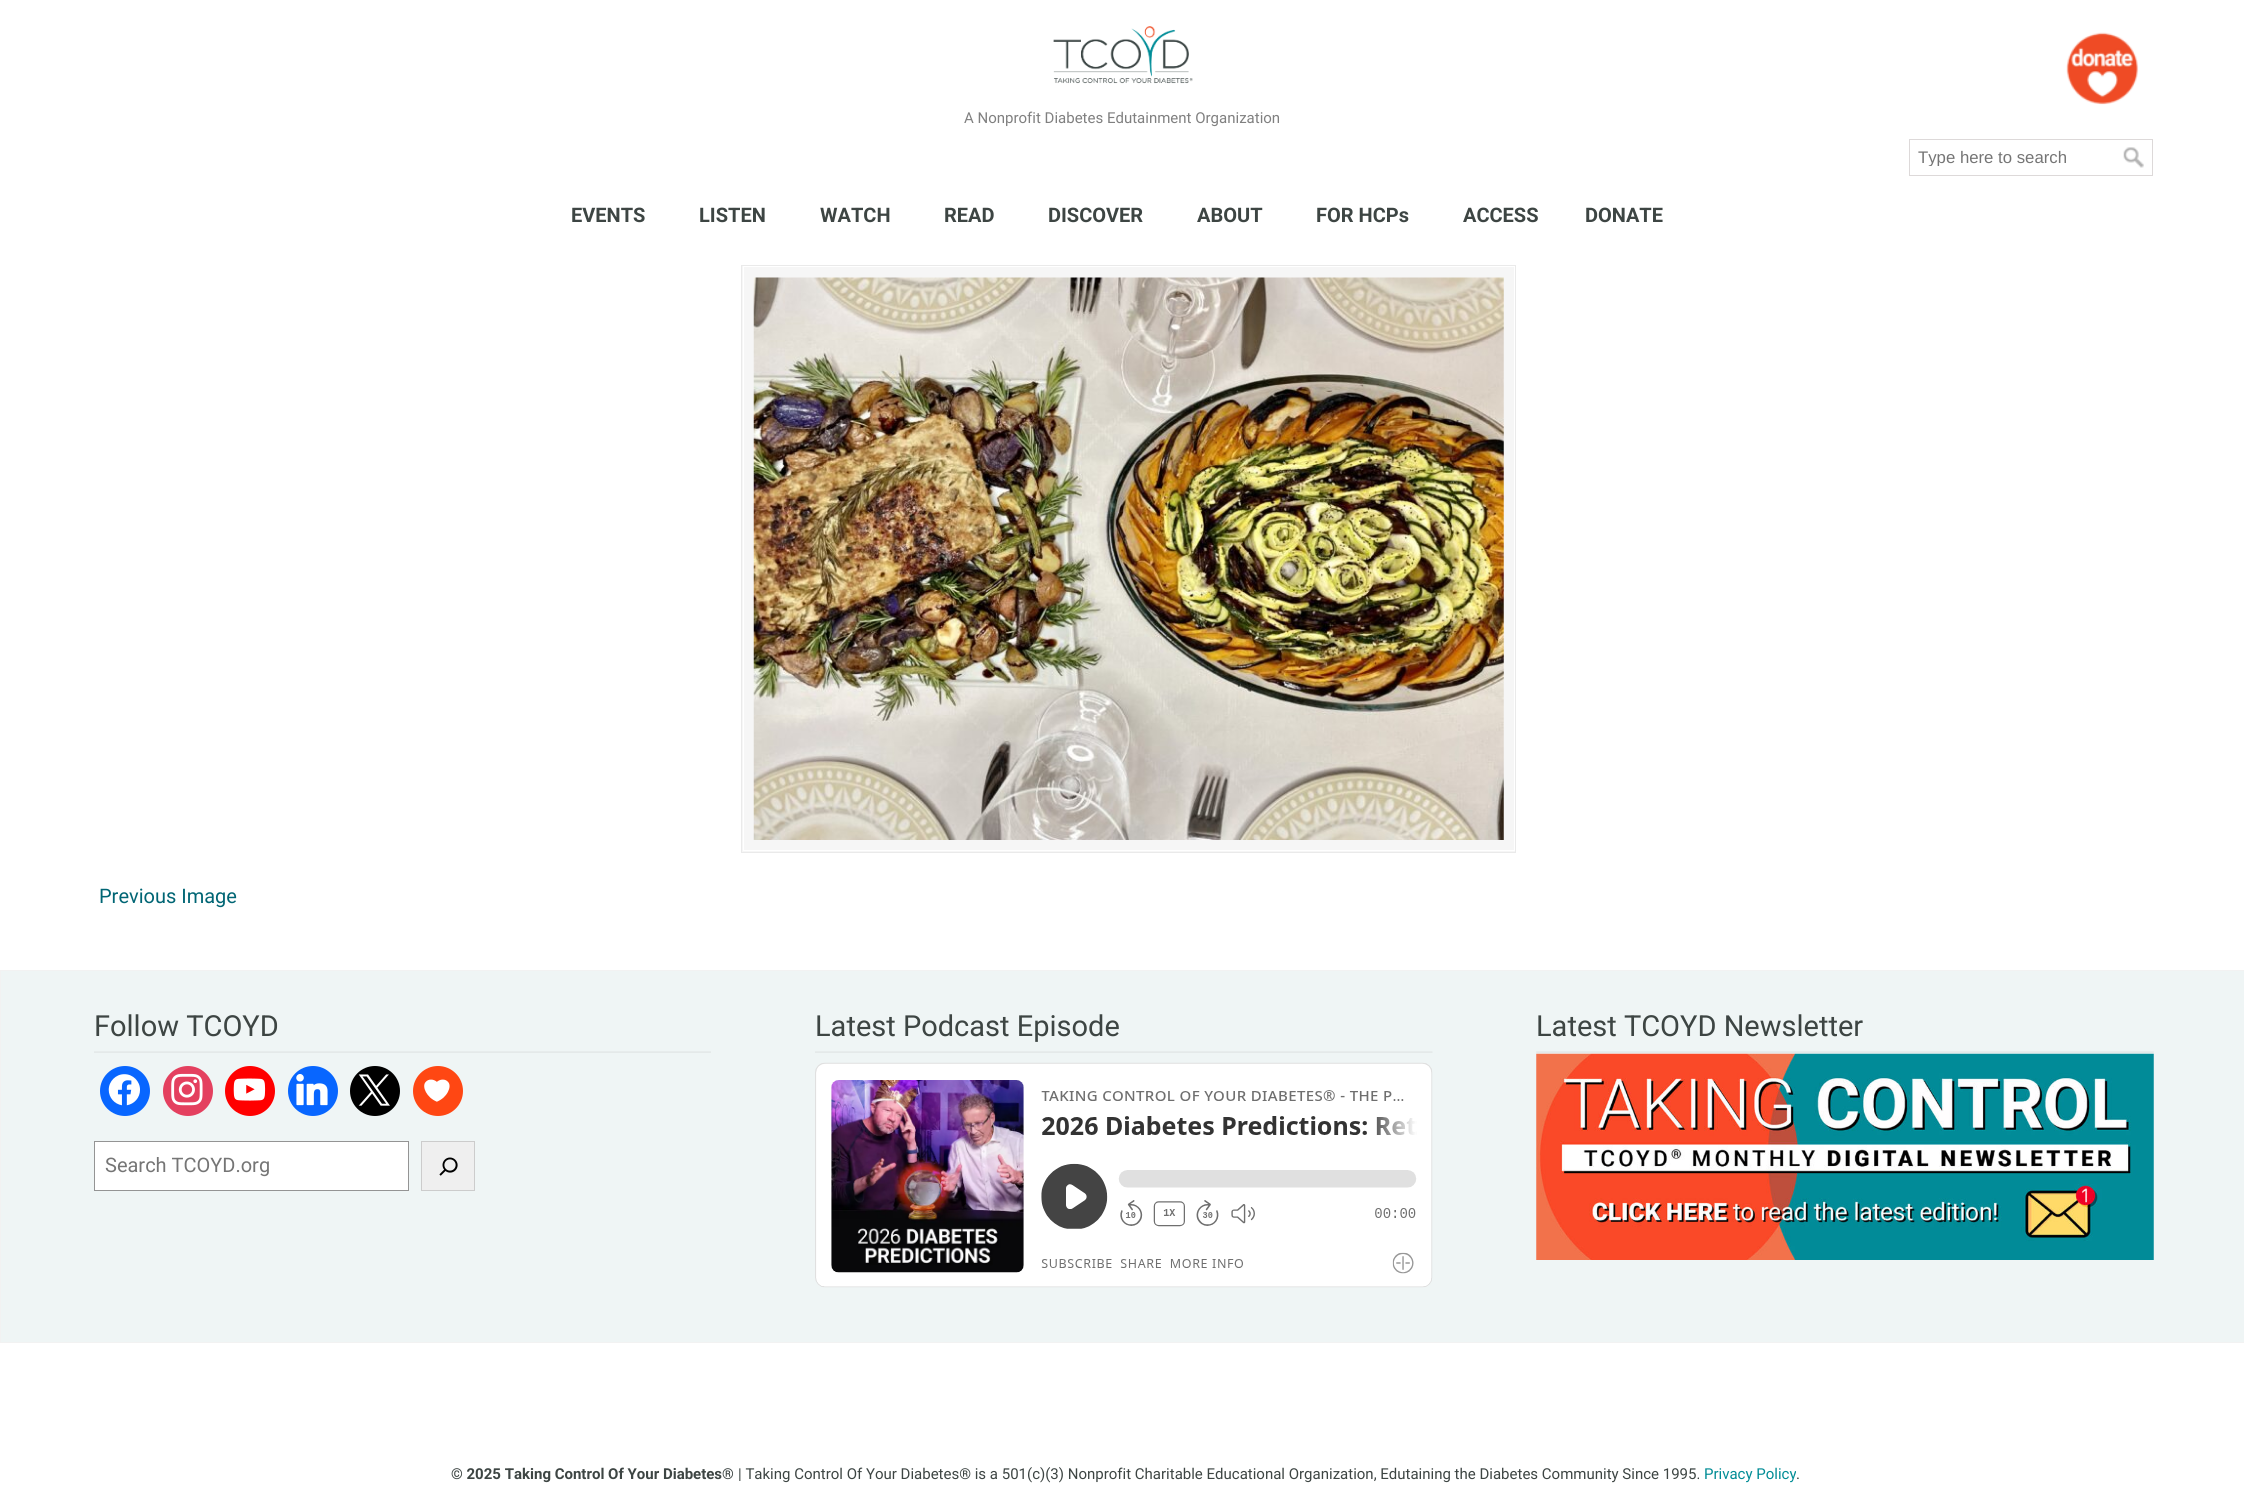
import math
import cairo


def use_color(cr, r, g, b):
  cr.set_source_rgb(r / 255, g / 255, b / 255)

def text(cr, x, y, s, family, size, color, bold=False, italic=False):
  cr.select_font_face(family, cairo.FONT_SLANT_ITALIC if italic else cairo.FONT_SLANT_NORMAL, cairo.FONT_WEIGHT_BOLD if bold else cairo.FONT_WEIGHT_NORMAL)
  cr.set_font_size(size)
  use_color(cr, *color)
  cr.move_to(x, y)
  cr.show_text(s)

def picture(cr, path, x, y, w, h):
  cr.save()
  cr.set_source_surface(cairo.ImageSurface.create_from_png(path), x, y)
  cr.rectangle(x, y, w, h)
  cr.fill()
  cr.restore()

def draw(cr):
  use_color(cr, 255, 255, 255)
  cr.paint()
  picture(cr, "img_01.png", 1053, 26, 140, 58)
  picture(cr, "img_02.png", 2066, 32, 73, 73)
  cr.rectangle(1909.5, 139.5, 243, 36)
  use_color(cr, 221, 217, 217)
  cr.set_line_width(1)
  cr.stroke()
  picture(cr, "img_03.png", 2123, 147, 21, 21)
  use_color(cr, 246, 246, 246)
  cr.rectangle(741.5, 265.5, 774, 587)
  cr.fill_preserve()
  use_color(cr, 234, 234, 234)
  cr.stroke()
  cr.rectangle(743.5, 266.5, 771, 584)
  use_color(cr, 255, 255, 255)
  cr.stroke()
  picture(cr, "img_04.png", 753, 277, 751, 563)
  use_color(cr, 239, 245, 245)
  cr.rectangle(0.5, 970.5, 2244, 372)
  cr.fill_preserve()
  use_color(cr, 242, 242, 242)
  cr.stroke()
  picture(cr, "img_05.png", 94, 1051, 617, 2)
  use_color(cr, 8, 102, 255)
  cr.arc(125, 1091, 25, 0, 2 * math.pi)
  cr.fill()
  picture(cr, "img_06.png", 108, 1074, 32, 32)
  use_color(cr, 228, 64, 95)
  cr.arc(188, 1091, 25, 0, 2 * math.pi)
  cr.fill()
  picture(cr, "img_07.png", 171, 1073, 32, 33)
  use_color(cr, 255, 0, 0)
  cr.arc(250, 1091, 25, 0, 2 * math.pi)
  cr.fill()
  picture(cr, "img_08.png", 233, 1078, 33, 23)
  use_color(cr, 8, 102, 255)
  cr.arc(313, 1091, 25, 0, 2 * math.pi)
  cr.fill()
  picture(cr, "img_09.png", 296, 1074, 32, 32)
  use_color(cr, 0, 0, 0)
  cr.arc(375, 1091, 25, 0, 2 * math.pi)
  cr.fill()
  picture(cr, "img_10.png", 358, 1074, 32, 32)
  use_color(cr, 255, 71, 19)
  cr.arc(438, 1091, 25, 0, 2 * math.pi)
  cr.fill()
  picture(cr, "img_11.png", 424, 1079, 26, 23)
  use_color(cr, 255, 255, 255)
  cr.rectangle(94.5, 1141.5, 314, 49)
  cr.fill_preserve()
  use_color(cr, 148, 148, 148)
  cr.stroke()
  use_color(cr, 239, 239, 239)
  cr.rectangle(421.5, 1141.5, 53, 49)
  cr.fill_preserve()
  use_color(cr, 204, 204, 204)
  cr.stroke()
  picture(cr, "img_12.png", 439, 1157, 19, 19)
  picture(cr, "img_13.png", 815, 1051, 618, 2)
  picture(cr, "img_14.png", 815, 1062, 618, 226)
  picture(cr, "img_15.png", 1536, 1051, 618, 2)
  picture(cr, "img_16.png", 1536, 1053, 618, 207)
  text(cr, 964, 123, "A Nonprofit Diabetes Edutainment Organization", "Roboto", 15, (128, 128, 128))
  cr.save()
  cr.rectangle(1918, 148, 226, 18)
  cr.clip()
  text(cr, 1918, 163, "Type here to search", "Liberation Sans", 16.75, (117, 117, 117))
  cr.restore()
  text(cr, 571, 222, "EVENTS", "Roboto", 20, (61, 69, 67), bold=True)
  text(cr, 699, 222, "LISTEN", "Roboto", 20, (61, 69, 67), bold=True)
  text(cr, 820, 222, "WATCH", "Roboto", 20, (61, 69, 67), bold=True)
  text(cr, 944, 222, "READ", "Roboto", 20, (61, 69, 67), bold=True)
  text(cr, 1048, 222, "DISCOVER", "Roboto", 20, (61, 69, 67), bold=True)
  text(cr, 1197, 222, "ABOUT", "Roboto", 20, (61, 69, 67), bold=True)
  text(cr, 1316, 222, "FOR HCPs", "Roboto", 20, (61, 69, 67), bold=True)
  text(cr, 1463, 222, "ACCESS", "Roboto", 20, (61, 69, 67), bold=True)
  text(cr, 1585, 222, "DONATE", "Roboto", 20, (61, 69, 67), bold=True)
  text(cr, 99, 903, "Previous Image", "Roboto", 20, (0, 101, 116))
  text(cr, 94, 1036, "Follow TCOYD", "Roboto", 29, (61, 69, 67))
  text(cr, 105, 1172, "Search TCOYD.org", "Roboto", 20, (117, 117, 117))
  text(cr, 815, 1036, "Latest Podcast Episode", "Roboto", 29, (61, 69, 67))
  text(cr, 1536, 1036, "Latest TCOYD Newsletter", "Roboto", 29, (61, 69, 67))
  text(cr, 451, 1479, "© 2025 Taking Control Of Your Diabetes®", "Roboto", 15, (61, 69, 67), bold=True)
  text(cr, 738, 1479, "| Taking Control Of Your Diabetes® is a 501(c)(3) Nonprofit Charitable Educational Organization, Edutaining the Diabetes Community Since 1995.", "Roboto", 15, (61, 69, 67))
  text(cr, 1704, 1479, "Privacy Policy", "Roboto", 15, (0, 140, 149))
  text(cr, 1796, 1479, ".", "Roboto", 15, (61, 69, 67))


surface = cairo.ImageSurface(cairo.FORMAT_RGB24, 2244, 1501)
cr = cairo.Context(surface)
options = cairo.FontOptions()
options.set_hint_metrics(cairo.HINT_METRICS_OFF)
options.set_hint_style(cairo.HINT_STYLE_NONE)
cr.set_font_options(options)
cr.set_miter_limit(4)
draw(cr)
surface.write_to_png("out.png")
